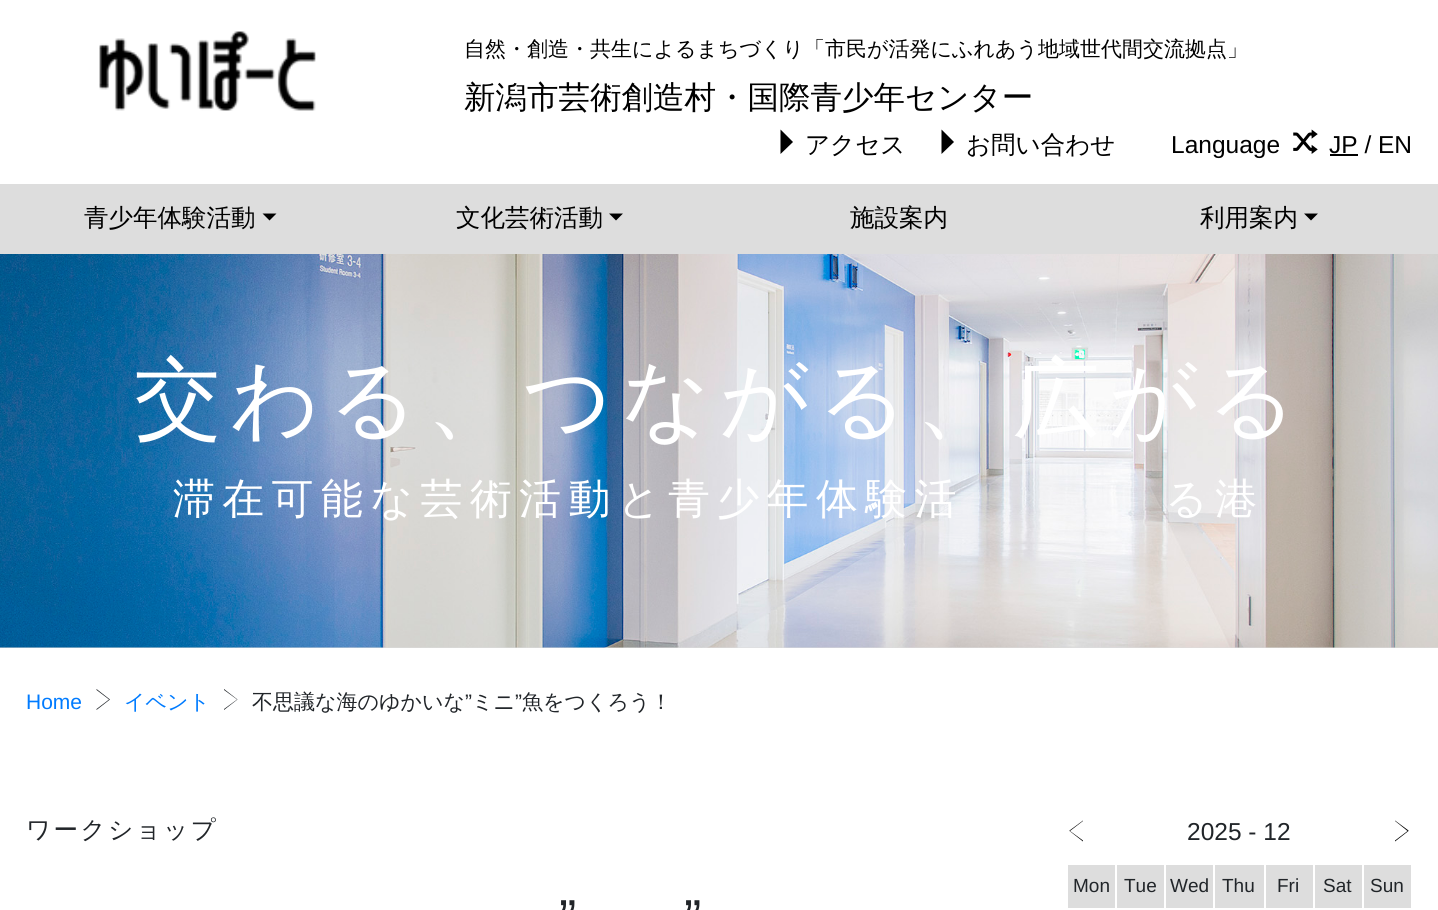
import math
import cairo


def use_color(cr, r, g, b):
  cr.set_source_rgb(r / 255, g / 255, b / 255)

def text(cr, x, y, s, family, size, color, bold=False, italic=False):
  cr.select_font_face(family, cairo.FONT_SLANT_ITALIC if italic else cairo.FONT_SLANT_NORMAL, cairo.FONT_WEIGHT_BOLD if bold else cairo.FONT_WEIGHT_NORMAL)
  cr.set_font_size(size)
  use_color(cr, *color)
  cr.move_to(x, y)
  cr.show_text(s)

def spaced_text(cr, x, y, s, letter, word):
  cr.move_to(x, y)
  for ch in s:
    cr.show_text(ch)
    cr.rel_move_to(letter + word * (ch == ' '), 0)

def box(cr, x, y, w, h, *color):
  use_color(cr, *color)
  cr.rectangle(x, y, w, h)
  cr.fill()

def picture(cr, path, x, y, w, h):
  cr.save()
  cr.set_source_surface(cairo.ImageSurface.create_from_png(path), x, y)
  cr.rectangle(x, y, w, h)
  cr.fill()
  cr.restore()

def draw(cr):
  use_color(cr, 255, 255, 255)
  cr.paint()
  picture(cr, "img_01.png", 99, 31, 217, 80)
  use_color(cr, 0, 0, 0)
  cr.new_path()
  cr.move_to(780.5, 129.5)
  cr.line_to(793, 142)
  cr.line_to(780.5, 154)
  cr.close_path()
  cr.fill()
  cr.new_path()
  cr.move_to(941.5, 129.5)
  cr.line_to(954, 142)
  cr.line_to(941.5, 154)
  cr.close_path()
  cr.fill()
  picture(cr, "img_02.png", 1293, 129, 25, 25)
  box(cr, 1330, 154, 28, 2, 0, 0, 0)
  box(cr, 0, 184, 1438, 70, 221, 221, 221)
  use_color(cr, 0, 0, 0)
  cr.new_path()
  cr.move_to(262.5, 213.5)
  cr.line_to(276.5, 213.5)
  cr.line_to(269.5, 220.5)
  cr.close_path()
  cr.fill()
  cr.new_path()
  cr.move_to(609, 213.5)
  cr.line_to(623, 213.5)
  cr.line_to(616, 220.5)
  cr.close_path()
  cr.fill()
  cr.new_path()
  cr.move_to(1304, 213.5)
  cr.line_to(1318, 213.5)
  cr.line_to(1311, 220.5)
  cr.close_path()
  cr.fill()
  box(cr, 0, 647, 1438, 1, 221, 221, 221)
  picture(cr, "img_03.png", 0, 254, 1438, 394)
  use_color(cr, 33, 37, 41)
  cr.new_path()
  cr.move_to(96.5, 689)
  cr.line_to(110, 699.5)
  cr.line_to(96.5, 710)
  cr.line_to(96.5, 709)
  cr.line_to(109, 699.5)
  cr.line_to(96.5, 690)
  cr.close_path()
  cr.fill()
  cr.new_path()
  cr.move_to(224, 689)
  cr.line_to(237.5, 699.5)
  cr.line_to(224, 710)
  cr.line_to(224, 709)
  cr.line_to(237, 699.5)
  cr.line_to(224, 690)
  cr.close_path()
  cr.fill()
  use_color(cr, 0, 0, 0)
  cr.new_path()
  cr.move_to(1083, 841.5)
  cr.line_to(1069.5, 831)
  cr.line_to(1069.5, 830.5)
  cr.line_to(1083, 820.5)
  cr.line_to(1083, 821)
  cr.line_to(1070, 831)
  cr.line_to(1083, 840.5)
  cr.close_path()
  cr.fill()
  cr.new_path()
  cr.move_to(1395, 820.5)
  cr.line_to(1408.5, 830.5)
  cr.line_to(1408.5, 831)
  cr.line_to(1395, 841.5)
  cr.line_to(1395, 840.5)
  cr.line_to(1407.5, 831)
  cr.line_to(1395, 821)
  cr.close_path()
  cr.fill()
  box(cr, 1068, 865, 47, 43, 221, 221, 221)
  box(cr, 1117, 865, 47, 43, 221, 221, 221)
  box(cr, 1166, 865, 47, 43, 221, 221, 221)
  box(cr, 1215, 865, 49, 43, 221, 221, 221)
  box(cr, 1266, 865, 47, 43, 221, 221, 221)
  box(cr, 1315, 865, 47, 43, 221, 221, 221)
  box(cr, 1364, 865, 47, 43, 221, 221, 221)
  text(cr, 464, 56, "自然・創造・共生によるまちづくり「市民が活発にふれあう地域世代間交流拠点」", "WenQuanYi Zen Hei Medium", 21, (0, 0, 0))
  text(cr, 464, 108, "新潟市芸術創造村・国際青少年センター", "WenQuanYi Zen Hei Medium", 31.5, (0, 0, 0))
  text(cr, 805, 153, "アクセス", "WenQuanYi Zen Hei Medium", 24.5, (0, 0, 0))
  text(cr, 966, 153, "お問い合わせ", "WenQuanYi Zen Hei Medium", 24.5, (0, 0, 0))
  text(cr, 1171, 153, "Language", "Liberation Sans", 24.5, (0, 0, 0))
  text(cr, 1329, 153, "JP / EN", "Liberation Sans", 24.5, (0, 0, 0))
  text(cr, 84, 226, "青少年体験活動", "WenQuanYi Zen Hei Medium", 24.5, (0, 0, 0))
  text(cr, 456, 226, "文化芸術活動", "WenQuanYi Zen Hei Medium", 24.5, (0, 0, 0))
  text(cr, 850, 226, "施設案内", "WenQuanYi Zen Hei Medium", 24.5, (0, 0, 0))
  text(cr, 1200, 226, "利用案内", "WenQuanYi Zen Hei Medium", 24.5, (0, 0, 0))
  cr.set_font_size(87.5)
  use_color(cr, 255, 255, 255)
  spaced_text(cr, 134, 429, "交わる、つながる、広がる", 8.75, 0)
  cr.set_font_size(42)
  spaced_text(cr, 173, 513, "滞在可能な芸術活動と青少年体験活", 7.3, 0)
  spaced_text(cr, 1165, 513, "る港", 7.3, 0)
  text(cr, 26, 709, "Home", "Liberation Sans", 21, (0, 123, 255))
  text(cr, 124, 709, "イベント", "WenQuanYi Zen Hei Medium", 21, (0, 123, 255))
  text(cr, 252, 709, "不思議な海のゆかいな", "WenQuanYi Zen Hei Medium", 21, (33, 37, 41))
  text(cr, 465, 709, "”", "Liberation Sans", 21, (33, 37, 41))
  text(cr, 472, 709, "ミニ", "WenQuanYi Zen Hei Medium", 21, (33, 37, 41))
  text(cr, 515, 709, "”", "Liberation Sans", 21, (33, 37, 41))
  text(cr, 522, 709, "魚をつくろう！", "WenQuanYi Zen Hei Medium", 21, (33, 37, 41))
  cr.set_font_size(24.5)
  spaced_text(cr, 26, 838, "ワークショップ", 2.5, 0)
  text(cr, 559, 936, "”", "Liberation Sans", 52, (33, 37, 41))
  text(cr, 684, 936, "”", "Liberation Sans", 52, (33, 37, 41))
  text(cr, 1187, 840, "2025 - 12", "Liberation Sans", 24.5, (33, 37, 41))
  text(cr, 1073, 892, "Mon", "Liberation Sans", 19, (33, 37, 41))
  text(cr, 1124, 892, "Tue", "Liberation Sans", 19, (33, 37, 41))
  text(cr, 1170, 892, "Wed", "Liberation Sans", 19, (33, 37, 41))
  text(cr, 1222, 892, "Thu", "Liberation Sans", 19, (33, 37, 41))
  text(cr, 1277, 892, "Fri", "Liberation Sans", 19, (33, 37, 41))
  text(cr, 1323, 892, "Sat", "Liberation Sans", 19, (33, 37, 41))
  text(cr, 1370, 892, "Sun", "Liberation Sans", 19, (33, 37, 41))


surface = cairo.ImageSurface(cairo.FORMAT_RGB24, 1438, 910)
cr = cairo.Context(surface)
options = cairo.FontOptions()
options.set_hint_metrics(cairo.HINT_METRICS_OFF)
options.set_hint_style(cairo.HINT_STYLE_NONE)
cr.set_font_options(options)
cr.set_miter_limit(4)
draw(cr)
surface.write_to_png("out.png")
